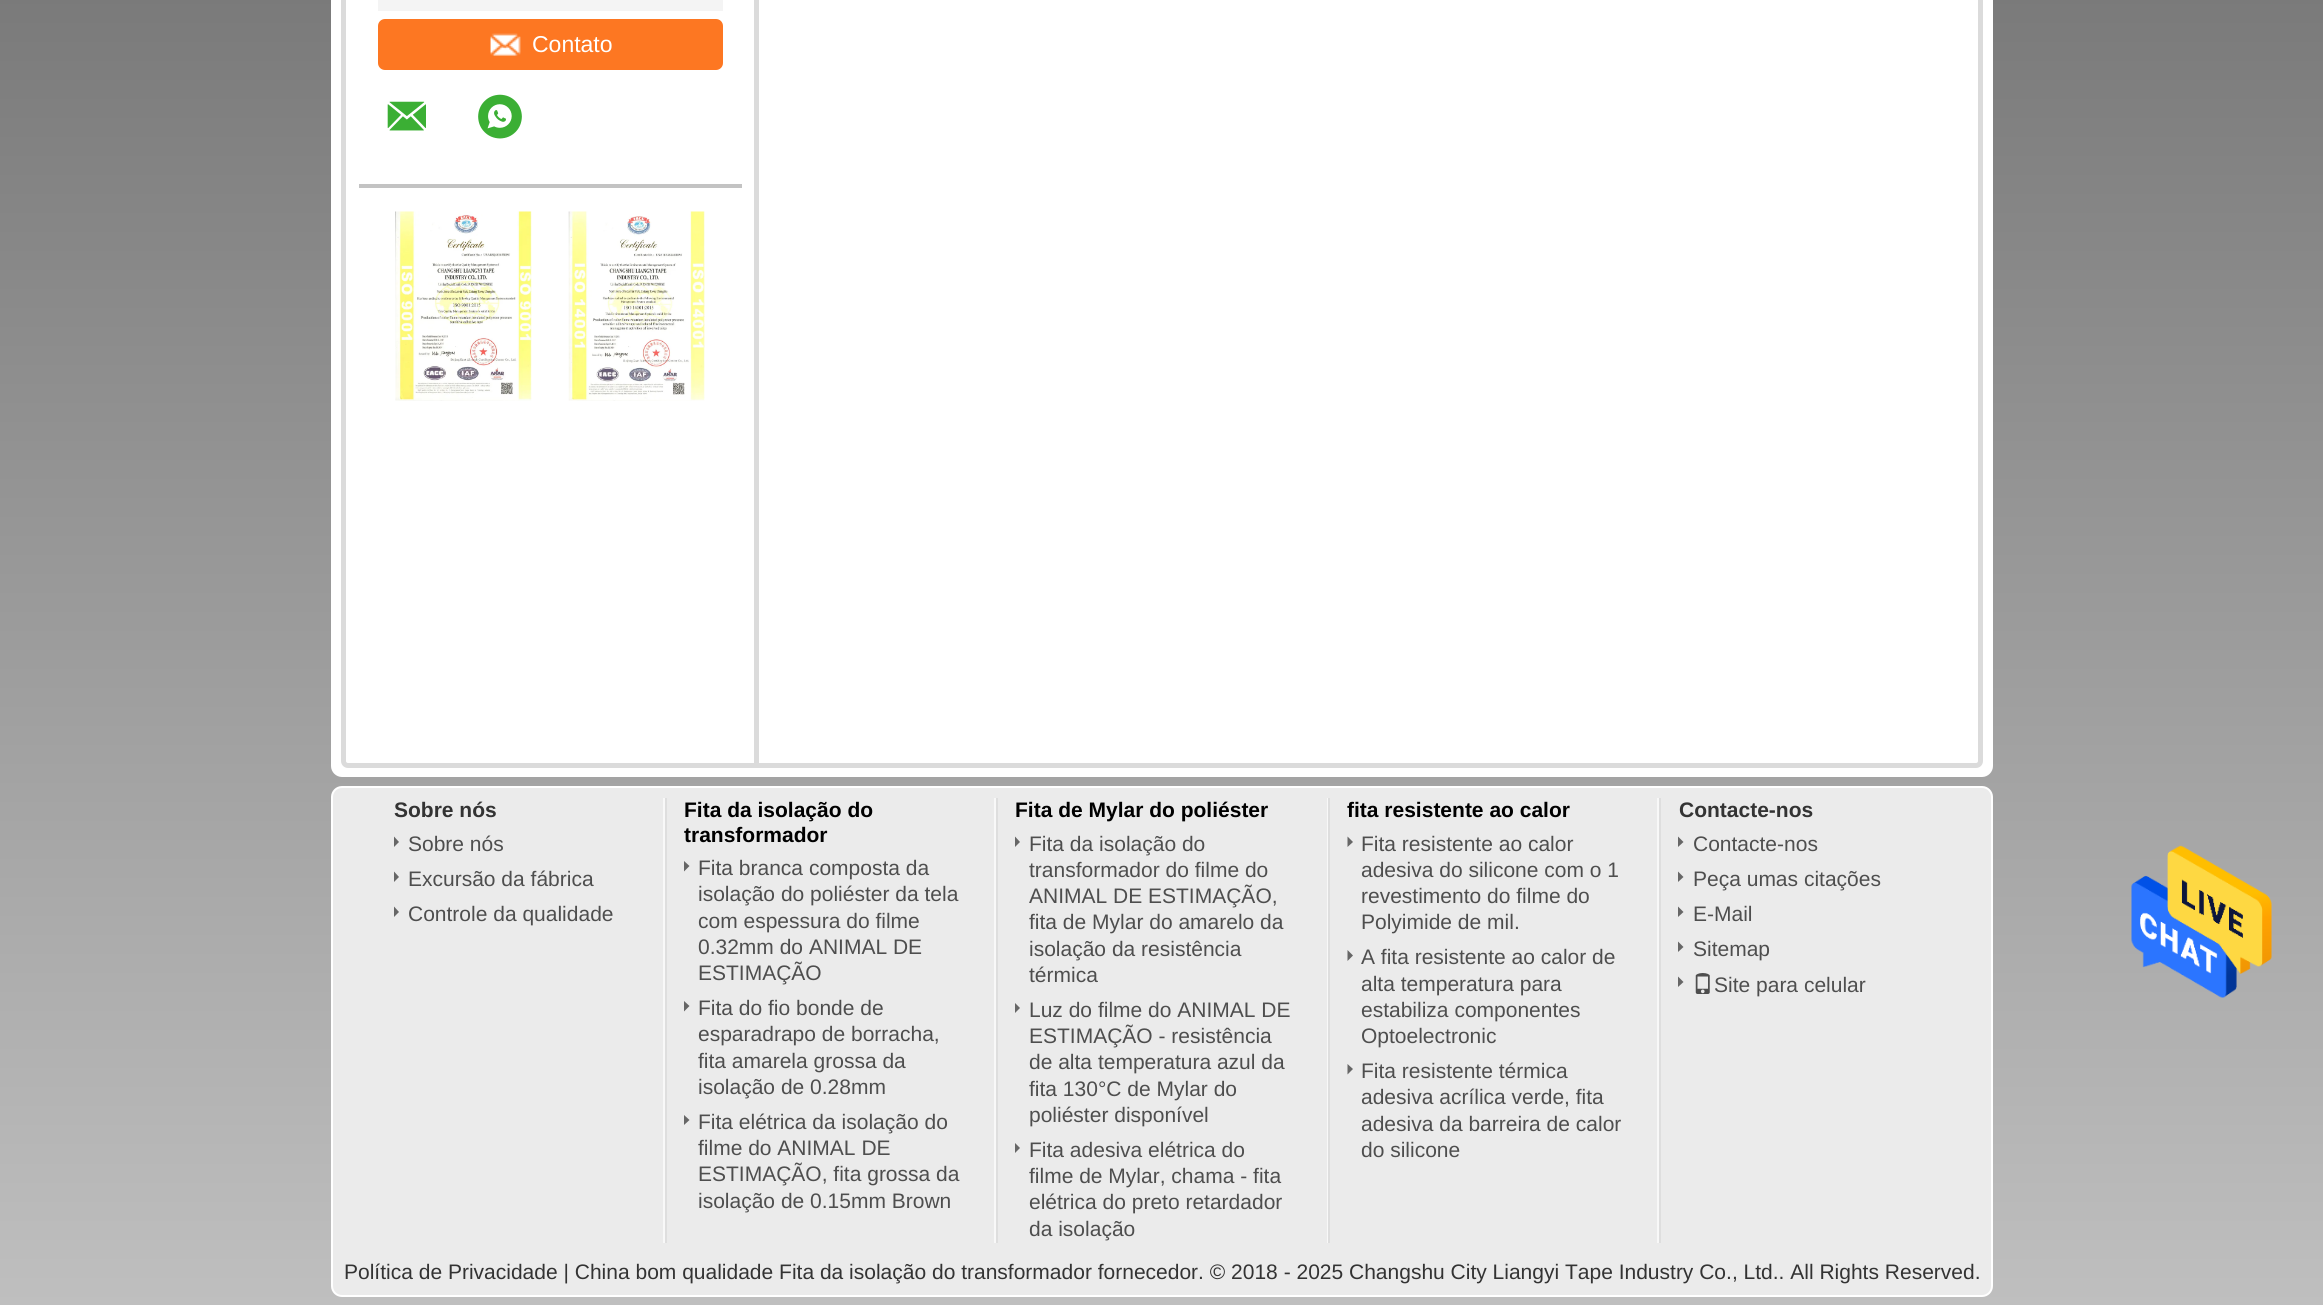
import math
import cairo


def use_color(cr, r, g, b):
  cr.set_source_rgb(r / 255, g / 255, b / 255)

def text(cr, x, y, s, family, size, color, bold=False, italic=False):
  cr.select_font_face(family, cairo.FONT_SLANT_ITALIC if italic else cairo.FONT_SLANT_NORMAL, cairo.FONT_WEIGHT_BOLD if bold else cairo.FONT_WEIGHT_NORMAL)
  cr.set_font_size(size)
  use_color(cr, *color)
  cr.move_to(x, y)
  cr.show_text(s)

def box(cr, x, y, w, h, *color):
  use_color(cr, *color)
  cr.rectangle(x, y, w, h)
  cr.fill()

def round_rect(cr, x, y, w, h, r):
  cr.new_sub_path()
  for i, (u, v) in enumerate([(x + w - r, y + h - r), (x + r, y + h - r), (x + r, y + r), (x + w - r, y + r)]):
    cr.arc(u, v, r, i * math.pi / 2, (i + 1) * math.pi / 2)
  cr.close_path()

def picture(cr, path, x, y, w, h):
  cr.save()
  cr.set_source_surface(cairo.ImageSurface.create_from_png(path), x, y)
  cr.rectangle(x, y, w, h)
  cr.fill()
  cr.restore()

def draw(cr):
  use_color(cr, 255, 255, 255)
  cr.paint()
  gradient = cairo.LinearGradient(1162, -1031, 1162, 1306)
  gradient.add_color_stop_rgba(0, 0.267, 0.267, 0.267, 1)
  gradient.add_color_stop_rgba(1, 0.749, 0.749, 0.749, 1)
  cr.set_source(gradient)
  cr.rectangle(0, 0, 2323, 1305)
  cr.fill()
  use_color(cr, 255, 255, 255)
  cr.new_path()
  cr.move_to(331, -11)
  cr.line_to(1993, -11)
  cr.line_to(1993, 766)
  cr.curve_to(1993, 772, 1988, 777, 1982, 777)
  cr.line_to(342, 777)
  cr.curve_to(336, 777, 331, 772, 331, 766)
  cr.close_path()
  cr.fill()
  round_rect(cr, 343.5, -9.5, 1637, 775, 4.5)
  use_color(cr, 219, 219, 219)
  cr.set_line_width(5)
  cr.stroke()
  box(cr, 359, 184, 383, 4, 195, 195, 195)
  box(cr, 378, 0, 345, 11, 244, 244, 244)
  use_color(cr, 253, 119, 34)
  round_rect(cr, 378, 19, 345, 51, 7)
  cr.fill()
  picture(cr, "img_01.png", 490, 33, 31, 23)
  picture(cr, "img_02.png", 387, 101, 39, 30)
  picture(cr, "img_03.png", 478, 94, 44, 45)
  picture(cr, "img_04.png", 395, 211, 137, 190)
  picture(cr, "img_05.png", 568, 211, 137, 190)
  box(cr, 754, 0, 5, 763, 219, 219, 219)
  use_color(cr, 235, 235, 235)
  round_rect(cr, 332, 787, 1660, 509, 10)
  cr.fill_preserve()
  use_color(cr, 255, 255, 255)
  cr.set_line_width(2)
  cr.stroke()
  box(cr, 663, 798, 2, 445, 248, 248, 248)
  use_color(cr, 102, 102, 102)
  cr.new_path()
  cr.move_to(394, 847)
  cr.line_to(394, 836.5)
  cr.line_to(399, 842)
  cr.close_path()
  cr.fill()
  cr.new_path()
  cr.move_to(394, 882)
  cr.line_to(394, 871.5)
  cr.line_to(399, 877)
  cr.close_path()
  cr.fill()
  cr.new_path()
  cr.move_to(394, 917)
  cr.line_to(394, 906.5)
  cr.line_to(399, 912)
  cr.close_path()
  cr.fill()
  box(cr, 994, 798, 2, 445, 248, 248, 248)
  box(cr, 665, 798, 2, 445, 222, 222, 222)
  use_color(cr, 102, 102, 102)
  cr.new_path()
  cr.move_to(684, 871.5)
  cr.line_to(684, 861)
  cr.line_to(689.5, 866)
  cr.close_path()
  cr.fill()
  cr.new_path()
  cr.move_to(684, 1011.5)
  cr.line_to(684, 1001)
  cr.line_to(689.5, 1006)
  cr.close_path()
  cr.fill()
  cr.new_path()
  cr.move_to(684, 1125)
  cr.line_to(684, 1115)
  cr.line_to(689.5, 1120)
  cr.close_path()
  cr.fill()
  box(cr, 1327, 798, 1, 445, 248, 248, 248)
  box(cr, 996, 798, 2, 445, 222, 222, 222)
  use_color(cr, 102, 102, 102)
  cr.new_path()
  cr.move_to(1015, 847)
  cr.line_to(1015, 836.5)
  cr.line_to(1020, 842)
  cr.close_path()
  cr.fill()
  cr.new_path()
  cr.move_to(1015, 1013)
  cr.line_to(1015, 1003)
  cr.line_to(1020, 1008)
  cr.close_path()
  cr.fill()
  cr.new_path()
  cr.move_to(1015, 1153)
  cr.line_to(1015, 1143)
  cr.line_to(1020, 1148)
  cr.close_path()
  cr.fill()
  box(cr, 1657, 798, 2, 445, 248, 248, 248)
  box(cr, 1328, 798, 2, 445, 222, 222, 222)
  use_color(cr, 102, 102, 102)
  cr.new_path()
  cr.move_to(1347.5, 847)
  cr.line_to(1347.5, 836.5)
  cr.line_to(1353, 842)
  cr.close_path()
  cr.fill()
  cr.new_path()
  cr.move_to(1347.5, 961)
  cr.line_to(1347.5, 950)
  cr.line_to(1353, 955.5)
  cr.close_path()
  cr.fill()
  cr.new_path()
  cr.move_to(1347.5, 1074.5)
  cr.line_to(1347.5, 1064)
  cr.line_to(1353, 1069)
  cr.close_path()
  cr.fill()
  box(cr, 1659, 798, 2, 445, 222, 222, 222)
  use_color(cr, 102, 102, 102)
  cr.new_path()
  cr.move_to(1678, 847)
  cr.line_to(1678, 836.5)
  cr.line_to(1683.5, 842)
  cr.close_path()
  cr.fill()
  cr.new_path()
  cr.move_to(1678, 882)
  cr.line_to(1678, 871.5)
  cr.line_to(1683.5, 877)
  cr.close_path()
  cr.fill()
  cr.new_path()
  cr.move_to(1678, 917)
  cr.line_to(1678, 906.5)
  cr.line_to(1683.5, 912)
  cr.close_path()
  cr.fill()
  cr.new_path()
  cr.move_to(1678, 952)
  cr.line_to(1678, 941.5)
  cr.line_to(1683.5, 947)
  cr.close_path()
  cr.fill()
  cr.new_path()
  cr.move_to(1678, 987)
  cr.line_to(1678, 976.5)
  cr.line_to(1683.5, 982)
  cr.close_path()
  cr.fill()
  picture(cr, "img_06.png", 1695, 973, 15, 21)
  picture(cr, "img_07.png", 2131, 845, 141, 153)
  text(cr, 532, 52, "Contato", "Liberation Sans", 23, (255, 255, 255))
  text(cr, 394, 817, "Sobre nós", "Liberation Sans", 21, (51, 51, 51), bold=True)
  text(cr, 408, 851, "Sobre nós", "Liberation Sans", 21, (78, 78, 78))
  text(cr, 408, 886, "Excursão da fábrica", "Liberation Sans", 21, (78, 78, 78))
  text(cr, 408, 921, "Controle da qualidade", "Liberation Sans", 21, (78, 78, 78))
  text(cr, 684, 817, "Fita da isolação do", "Liberation Sans", 21, (0, 0, 0), bold=True)
  text(cr, 684, 842, "transformador", "Liberation Sans", 21, (0, 0, 0), bold=True)
  text(cr, 698, 875, "Fita branca composta da", "Liberation Sans", 21, (78, 78, 78))
  text(cr, 698, 901, "isolação do poliéster da tela", "Liberation Sans", 21, (78, 78, 78))
  text(cr, 698, 928, "com espessura do filme", "Liberation Sans", 21, (78, 78, 78))
  text(cr, 698, 954, "0.32mm do ANIMAL DE", "Liberation Sans", 21, (78, 78, 78))
  text(cr, 698, 980, "ESTIMAÇÃO", "Liberation Sans", 21, (78, 78, 78))
  text(cr, 698, 1015, "Fita do fio bonde de", "Liberation Sans", 21, (78, 78, 78))
  text(cr, 698, 1041, "esparadrapo de borracha,", "Liberation Sans", 21, (78, 78, 78))
  text(cr, 698, 1068, "fita amarela grossa da", "Liberation Sans", 21, (78, 78, 78))
  text(cr, 698, 1094, "isolação de 0.28mm", "Liberation Sans", 21, (78, 78, 78))
  text(cr, 698, 1129, "Fita elétrica da isolação do", "Liberation Sans", 21, (78, 78, 78))
  text(cr, 698, 1155, "filme do ANIMAL DE", "Liberation Sans", 21, (78, 78, 78))
  text(cr, 698, 1181, "ESTIMAÇÃO, fita grossa da", "Liberation Sans", 21, (78, 78, 78))
  text(cr, 698, 1208, "isolação de 0.15mm Brown", "Liberation Sans", 21, (78, 78, 78))
  text(cr, 1015, 817, "Fita de Mylar do poliéster", "Liberation Sans", 21, (0, 0, 0), bold=True)
  text(cr, 1029, 851, "Fita da isolação do", "Liberation Sans", 21, (78, 78, 78))
  text(cr, 1029, 877, "transformador do filme do", "Liberation Sans", 21, (78, 78, 78))
  text(cr, 1029, 903, "ANIMAL DE ESTIMAÇÃO,", "Liberation Sans", 21, (78, 78, 78))
  text(cr, 1029, 929, "fita de Mylar do amarelo da", "Liberation Sans", 21, (78, 78, 78))
  text(cr, 1029, 956, "isolação da resistência", "Liberation Sans", 21, (78, 78, 78))
  text(cr, 1029, 982, "térmica", "Liberation Sans", 21, (78, 78, 78))
  text(cr, 1029, 1017, "Luz do filme do ANIMAL DE", "Liberation Sans", 21, (78, 78, 78))
  text(cr, 1029, 1043, "ESTIMAÇÃO - resistência", "Liberation Sans", 21, (78, 78, 78))
  text(cr, 1029, 1069, "de alta temperatura azul da", "Liberation Sans", 21, (78, 78, 78))
  text(cr, 1029, 1096, "fita 130°C de Mylar do", "Liberation Sans", 21, (78, 78, 78))
  text(cr, 1029, 1122, "poliéster disponível", "Liberation Sans", 21, (78, 78, 78))
  text(cr, 1029, 1157, "Fita adesiva elétrica do", "Liberation Sans", 21, (78, 78, 78))
  text(cr, 1029, 1183, "filme de Mylar, chama - fita", "Liberation Sans", 21, (78, 78, 78))
  text(cr, 1029, 1209, "elétrica do preto retardador", "Liberation Sans", 21, (78, 78, 78))
  text(cr, 1029, 1236, "da isolação", "Liberation Sans", 21, (78, 78, 78))
  text(cr, 1347, 817, "fita resistente ao calor", "Liberation Sans", 21, (0, 0, 0), bold=True)
  text(cr, 1361, 851, "Fita resistente ao calor", "Liberation Sans", 21, (78, 78, 78))
  text(cr, 1361, 877, "adesiva do silicone com o 1", "Liberation Sans", 21, (78, 78, 78))
  text(cr, 1361, 903, "revestimento do filme do", "Liberation Sans", 21, (78, 78, 78))
  text(cr, 1361, 929, "Polyimide de mil.", "Liberation Sans", 21, (78, 78, 78))
  text(cr, 1361, 964, "A fita resistente ao calor de", "Liberation Sans", 21, (78, 78, 78))
  text(cr, 1361, 991, "alta temperatura para", "Liberation Sans", 21, (78, 78, 78))
  text(cr, 1361, 1017, "estabiliza componentes", "Liberation Sans", 21, (78, 78, 78))
  text(cr, 1361, 1043, "Optoelectronic", "Liberation Sans", 21, (78, 78, 78))
  text(cr, 1361, 1078, "Fita resistente térmica", "Liberation Sans", 21, (78, 78, 78))
  text(cr, 1361, 1104, "adesiva acrílica verde, fita", "Liberation Sans", 21, (78, 78, 78))
  text(cr, 1361, 1131, "adesiva da barreira de calor", "Liberation Sans", 21, (78, 78, 78))
  text(cr, 1361, 1157, "do silicone", "Liberation Sans", 21, (78, 78, 78))
  text(cr, 1679, 817, "Contacte-nos", "Liberation Sans", 21, (51, 51, 51), bold=True)
  text(cr, 1693, 851, "Contacte-nos", "Liberation Sans", 21, (78, 78, 78))
  text(cr, 1693, 886, "Peça umas citações", "Liberation Sans", 21, (78, 78, 78))
  text(cr, 1693, 921, "E-Mail", "Liberation Sans", 21, (78, 78, 78))
  text(cr, 1693, 956, "Sitemap", "Liberation Sans", 21, (78, 78, 78))
  text(cr, 1714, 992, "Site para celular", "Liberation Sans", 21, (78, 78, 78))
  text(cr, 344, 1279, "Política de Privacidade | China bom qualidade Fita da isolação do transformador fornecedor. © 2018 - 2025 Changshu City Liangyi Tape Industry Co., Ltd.. All Rights Reserved.", "Liberation Sans", 21, (51, 51, 51))


surface = cairo.ImageSurface(cairo.FORMAT_RGB24, 2323, 1305)
cr = cairo.Context(surface)
options = cairo.FontOptions()
options.set_hint_metrics(cairo.HINT_METRICS_OFF)
options.set_hint_style(cairo.HINT_STYLE_NONE)
cr.set_font_options(options)
cr.set_miter_limit(4)
draw(cr)
surface.write_to_png("out.png")
